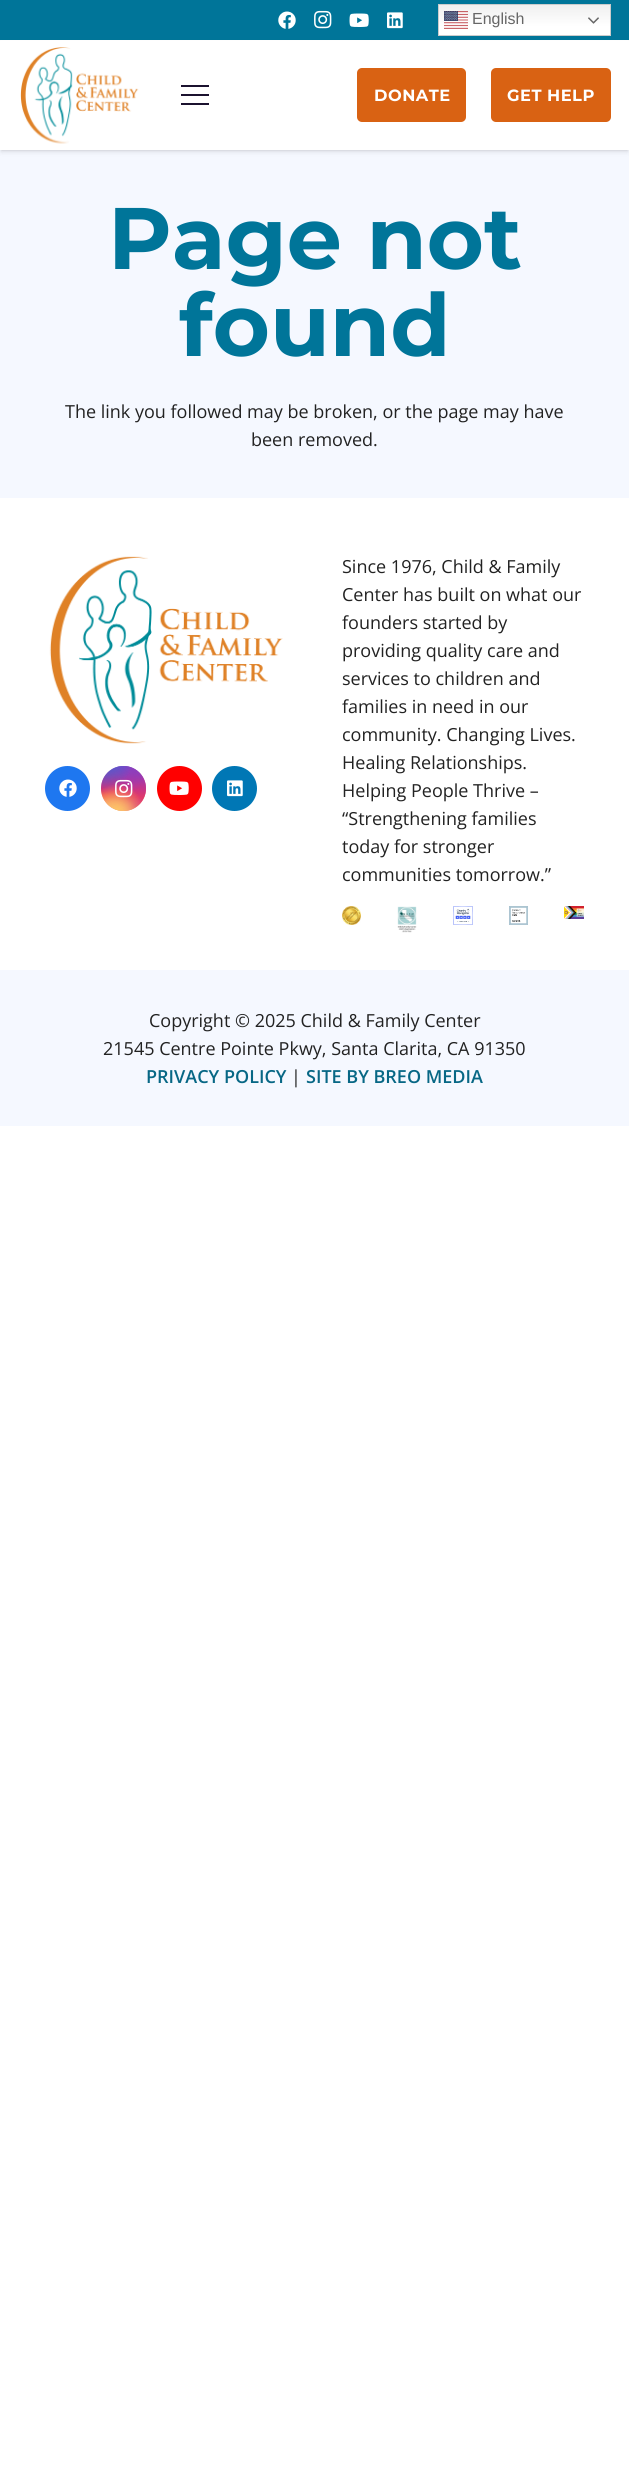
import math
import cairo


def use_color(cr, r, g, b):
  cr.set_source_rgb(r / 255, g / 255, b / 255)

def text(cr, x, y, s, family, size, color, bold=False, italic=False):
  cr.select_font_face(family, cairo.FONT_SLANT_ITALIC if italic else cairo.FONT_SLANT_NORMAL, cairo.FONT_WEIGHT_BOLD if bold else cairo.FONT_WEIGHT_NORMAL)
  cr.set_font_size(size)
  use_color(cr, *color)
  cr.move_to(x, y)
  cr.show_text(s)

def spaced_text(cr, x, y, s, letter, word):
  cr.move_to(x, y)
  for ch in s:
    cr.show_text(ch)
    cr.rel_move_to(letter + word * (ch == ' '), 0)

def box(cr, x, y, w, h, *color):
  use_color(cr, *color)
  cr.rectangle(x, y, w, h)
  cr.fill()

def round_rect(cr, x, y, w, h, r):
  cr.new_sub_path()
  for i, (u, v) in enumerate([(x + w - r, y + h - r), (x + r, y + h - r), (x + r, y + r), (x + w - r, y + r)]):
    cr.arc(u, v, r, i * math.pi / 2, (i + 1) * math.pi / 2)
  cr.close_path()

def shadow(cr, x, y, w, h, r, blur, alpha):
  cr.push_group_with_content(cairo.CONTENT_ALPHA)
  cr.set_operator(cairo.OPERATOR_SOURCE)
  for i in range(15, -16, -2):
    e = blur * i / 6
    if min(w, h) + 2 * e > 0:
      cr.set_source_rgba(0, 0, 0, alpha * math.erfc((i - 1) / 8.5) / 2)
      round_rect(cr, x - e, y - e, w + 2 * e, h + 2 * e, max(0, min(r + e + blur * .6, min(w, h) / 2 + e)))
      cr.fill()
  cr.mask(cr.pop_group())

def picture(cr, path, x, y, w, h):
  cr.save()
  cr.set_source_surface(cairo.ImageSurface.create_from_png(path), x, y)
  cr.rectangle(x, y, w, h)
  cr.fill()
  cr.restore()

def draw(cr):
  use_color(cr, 255, 255, 255)
  cr.paint()
  box(cr, 0, 150, 629, 348, 245, 248, 255)
  box(cr, 0, 0, 629, 40, 0, 117, 153)
  picture(cr, "img_01.png", 278, 11, 18, 18)
  picture(cr, "img_02.png", 314, 10, 18, 19)
  picture(cr, "img_03.png", 349, 13, 20, 14)
  picture(cr, "img_04.png", 387, 12, 16, 17)
  gradient = cairo.LinearGradient(525, 4, 525, 36)
  gradient.add_color_stop_rgba(0, 0.937, 0.937, 0.937, 1)
  gradient.add_color_stop_rgba(0.7, 1, 1, 1, 1)
  cr.set_source(gradient)
  cr.rectangle(439, 5, 171, 30)
  cr.fill()
  use_color(cr, 0, 0, 0)
  shadow(cr, 1, 44, 627, 108, 0, 2.5, 0.1)
  cr.rectangle(438.5, 4.5, 172, 31)
  use_color(cr, 204, 204, 204)
  cr.set_line_width(1)
  cr.stroke()
  picture(cr, "img_05.png", 444, 11, 24, 18)
  picture(cr, "img_06.png", 588, 17, 11, 7)
  use_color(cr, 0, 0, 0)
  shadow(cr, 1, 43, 627, 108, 0, 0.5, 0.05)
  box(cr, 0, 41, 629, 109, 255, 255, 255)
  picture(cr, "img_07.png", 20, 47, 119, 97)
  box(cr, 181, 94, 28, 2, 27, 18, 47)
  box(cr, 181, 85, 28, 2, 27, 18, 47)
  box(cr, 181, 103, 28, 2, 27, 18, 47)
  use_color(cr, 217, 98, 19)
  round_rect(cr, 357, 68, 109, 54, 5)
  cr.fill()
  round_rect(cr, 491, 68, 120, 54, 5)
  cr.fill()
  box(cr, 0, 970, 629, 156, 245, 248, 255)
  picture(cr, "img_08.png", 49, 556, 234, 188)
  use_color(cr, 30, 119, 240)
  cr.arc(67.5, 788.5, 22.5, 0, 2 * math.pi)
  cr.fill()
  picture(cr, "img_09.png", 59, 779, 18, 18)
  gradient = cairo.LinearGradient(124, 766, 124, 811)
  gradient.add_color_stop_rgba(0, 0.396, 0.349, 0.792, 1)
  gradient.add_color_stop_rgba(0.3, 0.737, 0.192, 0.561, 1)
  gradient.add_color_stop_rgba(0.5, 0.894, 0.18, 0.4, 1)
  gradient.add_color_stop_rgba(0.7, 0.98, 0.325, 0.196, 1)
  gradient.add_color_stop_rgba(1, 1, 0.863, 0.502, 1)
  cr.set_source(gradient)
  cr.arc(123.5, 788.5, 22.5, 0, 2 * math.pi)
  cr.fill()
  gradient = cairo.RadialGradient(146, 811, 0, 146, 811, 64)
  gradient.add_color_stop_rgba(0, 0.851, 0.192, 0.478, 1)
  gradient.add_color_stop_rgba(1, 0.851, 0.192, 0.478, 0)
  cr.set_source(gradient)
  cr.arc(123.5, 788.5, 22.5, 0, 2 * math.pi)
  cr.fill()
  gradient = cairo.RadialGradient(0, 0, 0, 0, 0, 1)
  gradient.set_matrix(cairo.Matrix(1 / 38, 0, 0, 1 / 76, -1 * 128 / 38, -1 * 757 / 76))
  gradient.add_color_stop_rgba(0, 0.537, 0.239, 0.761, 1)
  gradient.add_color_stop_rgba(0.5, 0.537, 0.239, 0.761, 0)
  cr.set_source(gradient)
  cr.arc(123.5, 788.5, 22.5, 0, 2 * math.pi)
  cr.fill()
  gradient = cairo.RadialGradient(146, 766, 0, 146, 766, 64)
  gradient.add_color_stop_rgba(0, 0.537, 0.239, 0.761, 1)
  gradient.add_color_stop_rgba(0.5, 0.537, 0.239, 0.761, 0)
  cr.set_source(gradient)
  cr.arc(123.5, 788.5, 22.5, 0, 2 * math.pi)
  cr.fill()
  gradient = cairo.RadialGradient(0, 0, 0, 0, 0, 1)
  gradient.set_matrix(cairo.Matrix(1 / 51, 0, 0, 1 / 95, -1 * 110 / 51, -1 * 744 / 95))
  gradient.add_color_stop_rgba(0, 0.322, 0.345, 0.812, 1)
  gradient.add_color_stop_rgba(0.5, 0.322, 0.345, 0.812, 0)
  cr.set_source(gradient)
  cr.arc(123.5, 788.5, 22.5, 0, 2 * math.pi)
  cr.fill()
  gradient = cairo.RadialGradient(0, 0, 0, 0, 0, 1)
  gradient.set_matrix(cairo.Matrix(1 / 64, 0, 0, 1 / 80, -1 * 101 / 64, -1 * 755 / 80))
  gradient.add_color_stop_rgba(0, 0.322, 0.345, 0.812, 1)
  gradient.add_color_stop_rgba(0.5, 0.322, 0.345, 0.812, 0)
  cr.set_source(gradient)
  cr.arc(123.5, 788.5, 22.5, 0, 2 * math.pi)
  cr.fill()
  gradient = cairo.RadialGradient(106, 829, 0, 106, 829, 75)
  gradient.add_color_stop_rgba(0, 0.996, 0.855, 0.494, 1)
  gradient.add_color_stop_rgba(0.5, 0.996, 0.855, 0.494, 0)
  cr.set_source(gradient)
  cr.arc(123.5, 788.5, 22.5, 0, 2 * math.pi)
  cr.fill()
  gradient = cairo.RadialGradient(117, 811, 0, 117, 811, 54)
  gradient.add_color_stop_rgba(0, 0.996, 0.773, 0.392, 1)
  gradient.add_color_stop_rgba(0.5, 0.996, 0.773, 0.392, 0)
  cr.set_source(gradient)
  cr.arc(123.5, 788.5, 22.5, 0, 2 * math.pi)
  cr.fill()
  picture(cr, "img_10.png", 115, 779, 18, 19)
  use_color(cr, 255, 0, 0)
  cr.arc(179.5, 788.5, 22.5, 0, 2 * math.pi)
  cr.fill()
  picture(cr, "img_11.png", 169, 781, 20, 14)
  use_color(cr, 0, 119, 181)
  cr.arc(234.5, 788.5, 22.5, 0, 2 * math.pi)
  cr.fill()
  picture(cr, "img_12.png", 227, 780, 16, 17)
  picture(cr, "img_13.png", 342, 906, 19, 19)
  picture(cr, "img_14.png", 397, 906, 20, 27)
  picture(cr, "img_15.png", 453, 906, 20, 19)
  picture(cr, "img_16.png", 509, 906, 19, 19)
  picture(cr, "img_17.png", 564, 906, 20, 13)
  text(cr, 472, 24, "English", "Liberation Sans", 16, (102, 102, 102))
  cr.select_font_face("Montserrat", cairo.FONT_SLANT_NORMAL, cairo.FONT_WEIGHT_BOLD)
  cr.set_font_size(16.25)
  use_color(cr, 255, 255, 255)
  spaced_text(cr, 374, 101, "DONATE", 0.5, 0)
  spaced_text(cr, 507, 101, "GET HELP", 0.5, 0)
  text(cr, 108, 269, "Page not", "Montserrat", 87.25, (0, 117, 153), bold=True)
  text(cr, 179, 356, "found", "Montserrat", 87.25, (0, 117, 153), bold=True)
  text(cr, 65, 418, "The link you followed may be broken, or the page may have", "Open Sans", 18, (34, 34, 34))
  text(cr, 251, 446, "been removed.", "Open Sans", 18, (34, 34, 34))
  text(cr, 342, 573, "Since 1976, Child & Family", "Open Sans", 18, (34, 34, 34))
  text(cr, 342, 601, "Center has built on what our", "Open Sans", 18, (34, 34, 34))
  text(cr, 342, 629, "founders started by", "Open Sans", 18, (34, 34, 34))
  text(cr, 342, 657, "providing quality care and", "Open Sans", 18, (34, 34, 34))
  text(cr, 342, 685, "services to children and", "Open Sans", 18, (34, 34, 34))
  text(cr, 342, 713, "families in need in our", "Open Sans", 18, (34, 34, 34))
  text(cr, 342, 741, "community. Changing Lives.", "Open Sans", 18, (34, 34, 34))
  text(cr, 342, 769, "Healing Relationships.", "Open Sans", 18, (34, 34, 34))
  text(cr, 342, 797, "Helping People Thrive –", "Open Sans", 18, (34, 34, 34))
  text(cr, 342, 825, "“Strengthening families", "Open Sans", 18, (34, 34, 34))
  text(cr, 342, 853, "today for stronger", "Open Sans", 18, (34, 34, 34))
  text(cr, 342, 881, "communities tomorrow.”", "Open Sans", 18, (34, 34, 34))
  text(cr, 149, 1027, "Copyright © 2025 Child & Family Center", "Open Sans", 18, (34, 34, 34))
  text(cr, 103, 1055, "21545 Centre Pointe Pkwy, Santa Clarita, CA 91350", "Open Sans", 18, (34, 34, 34))
  text(cr, 146, 1083, "PRIVACY POLICY", "Open Sans SemiBold", 18, (7, 103, 133))
  text(cr, 291, 1083, "|", "Open Sans", 18, (34, 34, 34))
  text(cr, 306, 1083, "SITE BY BREO MEDIA", "Open Sans SemiBold", 18, (7, 103, 133))


surface = cairo.ImageSurface(cairo.FORMAT_RGB24, 629, 2490)
cr = cairo.Context(surface)
options = cairo.FontOptions()
options.set_hint_metrics(cairo.HINT_METRICS_OFF)
options.set_hint_style(cairo.HINT_STYLE_NONE)
cr.set_font_options(options)
cr.set_miter_limit(4)
draw(cr)
surface.write_to_png("out.png")
